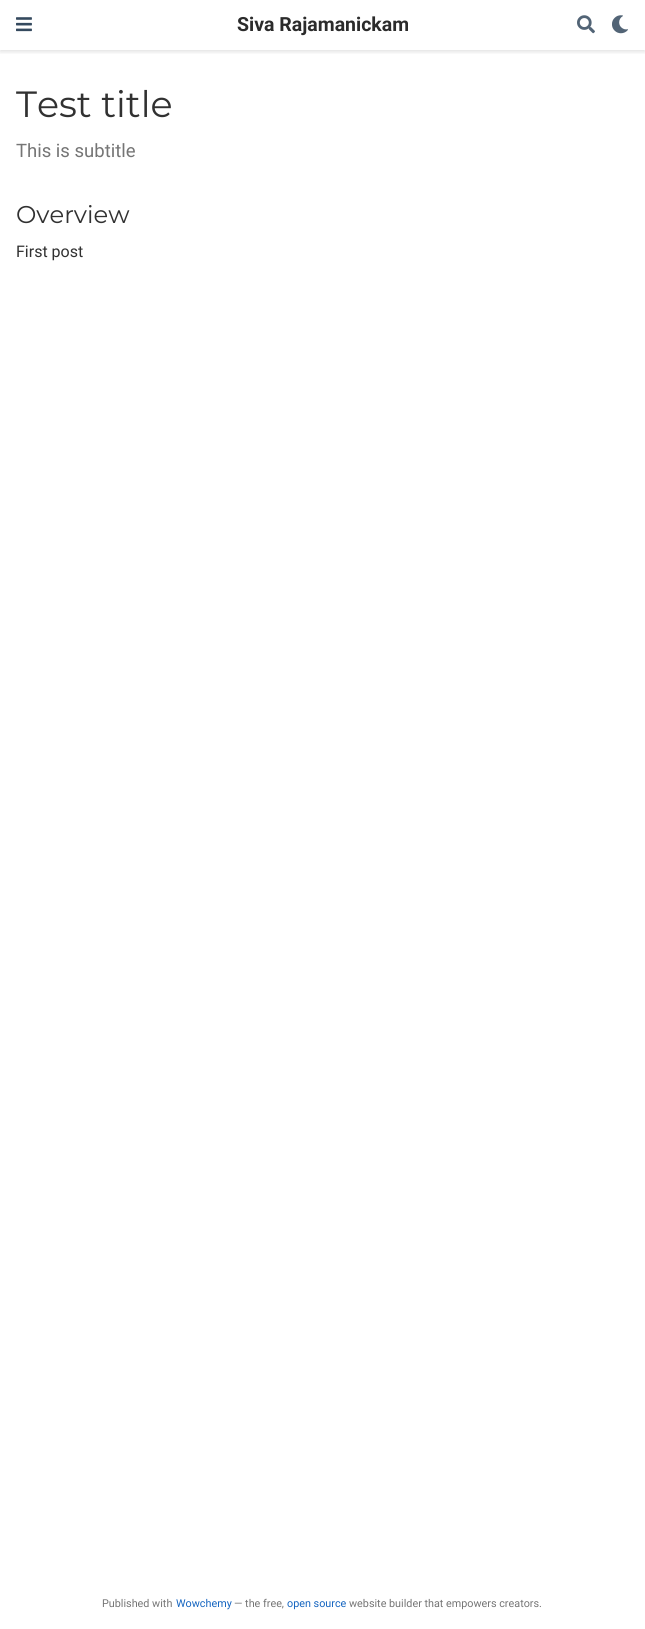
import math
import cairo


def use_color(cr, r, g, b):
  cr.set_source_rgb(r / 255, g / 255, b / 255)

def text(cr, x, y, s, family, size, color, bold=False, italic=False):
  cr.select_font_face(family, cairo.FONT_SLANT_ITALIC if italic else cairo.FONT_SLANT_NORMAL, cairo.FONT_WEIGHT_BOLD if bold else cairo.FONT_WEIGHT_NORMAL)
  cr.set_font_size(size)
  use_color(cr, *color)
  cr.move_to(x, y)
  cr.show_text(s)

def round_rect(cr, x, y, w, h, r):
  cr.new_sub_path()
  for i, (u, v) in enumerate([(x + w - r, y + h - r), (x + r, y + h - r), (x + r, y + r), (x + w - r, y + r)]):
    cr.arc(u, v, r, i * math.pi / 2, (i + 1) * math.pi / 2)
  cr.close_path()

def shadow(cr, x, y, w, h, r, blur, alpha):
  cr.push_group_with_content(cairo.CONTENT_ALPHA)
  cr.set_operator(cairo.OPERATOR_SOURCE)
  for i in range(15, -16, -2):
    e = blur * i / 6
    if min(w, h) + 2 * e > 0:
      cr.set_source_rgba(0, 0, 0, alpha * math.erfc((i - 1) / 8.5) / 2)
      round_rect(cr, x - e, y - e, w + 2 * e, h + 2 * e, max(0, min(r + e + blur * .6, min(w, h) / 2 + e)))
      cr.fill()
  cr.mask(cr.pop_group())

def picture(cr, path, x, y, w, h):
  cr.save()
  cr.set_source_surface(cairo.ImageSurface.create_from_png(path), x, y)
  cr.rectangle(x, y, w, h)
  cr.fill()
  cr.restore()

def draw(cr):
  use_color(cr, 255, 255, 255)
  cr.paint()
  cr.save()
  cr.rectangle(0, 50, 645, 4)
  cr.clip()
  use_color(cr, 0, 0, 0)
  shadow(cr, 0, 2, 645, 50, 0, 2, 0.11)
  cr.restore()
  picture(cr, "img_01.png", 16, 17, 16, 15)
  picture(cr, "img_02.png", 577, 15, 18, 19)
  picture(cr, "img_03.png", 612, 15, 16, 19)
  text(cr, 237, 31, "Siva Rajamanickam", "Roboto", 19.5, (43, 43, 43), bold=True)
  text(cr, 16, 117, "Test title", "Montserrat", 36.5, (49, 49, 49))
  text(cr, 16, 157, "This is subtitle", "Roboto", 18.5, (117, 117, 117))
  text(cr, 16, 223, "Overview", "Montserrat", 24.25, (49, 49, 49))
  text(cr, 16, 257, "First post", "Roboto", 16, (49, 49, 49))
  text(cr, 102, 1607, "Published with", "Roboto", 10.8, (117, 117, 117))
  text(cr, 176, 1607, "Wowchemy", "Roboto", 10.8, (21, 101, 192))
  text(cr, 234, 1607, "— the free,", "Roboto", 10.8, (117, 117, 117))
  text(cr, 287, 1607, "open source", "Roboto", 10.8, (21, 101, 192))
  text(cr, 349, 1607, "website builder that empowers creators.", "Roboto", 10.8, (117, 117, 117))


surface = cairo.ImageSurface(cairo.FORMAT_RGB24, 645, 1629)
cr = cairo.Context(surface)
options = cairo.FontOptions()
options.set_hint_metrics(cairo.HINT_METRICS_OFF)
options.set_hint_style(cairo.HINT_STYLE_NONE)
cr.set_font_options(options)
cr.set_miter_limit(4)
draw(cr)
surface.write_to_png("out.png")
